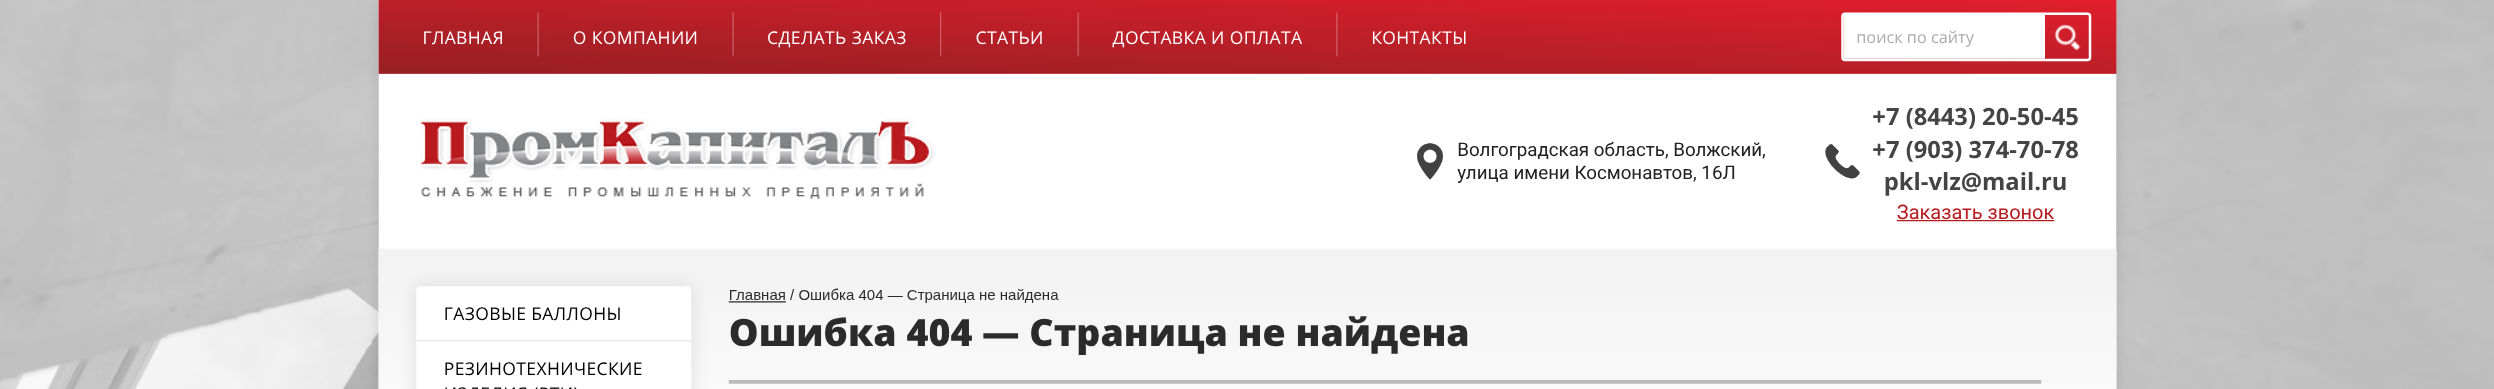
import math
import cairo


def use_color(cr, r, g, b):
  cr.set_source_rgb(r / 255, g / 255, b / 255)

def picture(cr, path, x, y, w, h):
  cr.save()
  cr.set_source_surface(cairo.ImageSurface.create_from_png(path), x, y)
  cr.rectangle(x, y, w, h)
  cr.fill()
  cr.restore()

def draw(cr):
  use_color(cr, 255, 255, 255)
  cr.paint()
  picture(cr, "img_01.png", 0, 0, 2494, 389)


surface = cairo.ImageSurface(cairo.FORMAT_RGB24, 2494, 389)
cr = cairo.Context(surface)
options = cairo.FontOptions()
options.set_hint_metrics(cairo.HINT_METRICS_OFF)
options.set_hint_style(cairo.HINT_STYLE_NONE)
cr.set_font_options(options)
cr.set_miter_limit(4)
draw(cr)
surface.write_to_png("out.png")
